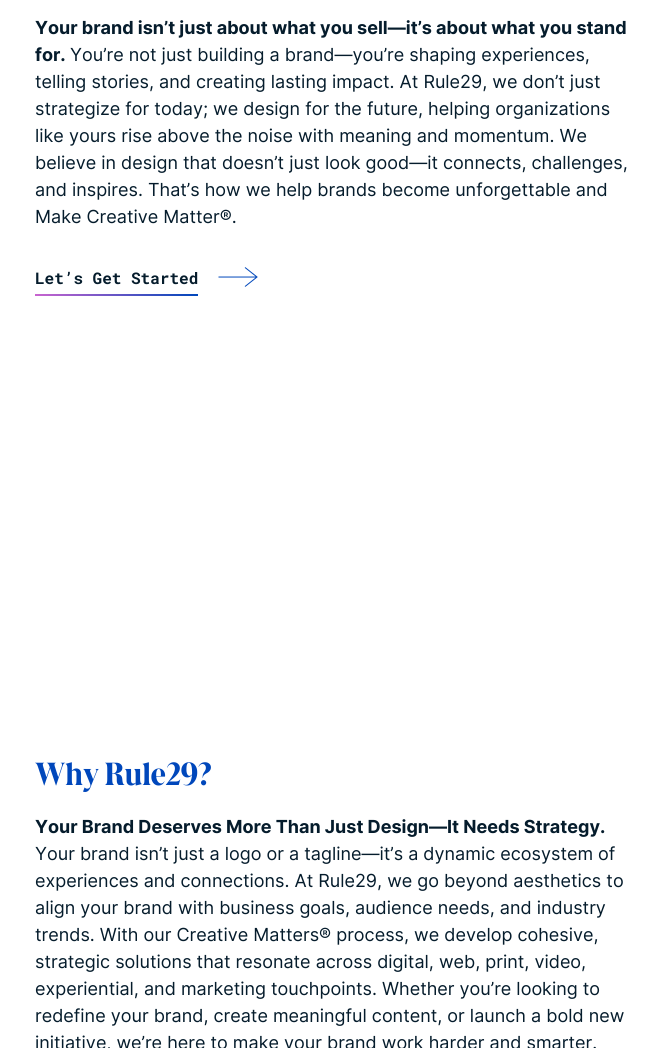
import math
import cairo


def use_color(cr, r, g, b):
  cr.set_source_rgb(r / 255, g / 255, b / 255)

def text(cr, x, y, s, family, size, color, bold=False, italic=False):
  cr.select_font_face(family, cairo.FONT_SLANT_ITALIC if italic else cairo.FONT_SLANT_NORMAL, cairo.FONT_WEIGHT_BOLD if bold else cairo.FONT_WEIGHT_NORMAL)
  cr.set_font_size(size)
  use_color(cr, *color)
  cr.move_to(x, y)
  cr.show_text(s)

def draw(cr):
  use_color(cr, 255, 255, 255)
  cr.paint()
  cr.new_path()
  cr.move_to(245, 267.5)
  cr.line_to(257, 277)
  cr.line_to(245, 286.5)
  cr.move_to(257, 277)
  cr.line_to(218.5, 277)
  use_color(cr, 0, 71, 187)
  cr.set_line_width(1)
  cr.stroke()
  gradient = cairo.LinearGradient(35, 295, 198, 295)
  gradient.add_color_stop_rgba(0, 0.788, 0.392, 0.812, 1)
  gradient.add_color_stop_rgba(1, 0, 0.278, 0.733, 1)
  cr.set_source(gradient)
  cr.rectangle(35, 294, 163, 2)
  cr.fill()
  text(cr, 35, 34, "Your brand isn’t just about what you sell—it’s about what you stand", "Inter", 18, (5, 28, 44), bold=True)
  text(cr, 35, 61, "for.", "Inter", 18, (5, 28, 44), bold=True)
  text(cr, 70, 61, "You’re not just building a brand—you’re shaping experiences,", "Inter", 18, (5, 28, 44))
  text(cr, 35, 88, "telling stories, and creating lasting impact. At Rule29, we don’t just", "Inter", 18, (5, 28, 44))
  text(cr, 35, 115, "strategize for today; we design for the future, helping organizations", "Inter", 18, (5, 28, 44))
  text(cr, 35, 142, "like yours rise above the noise with meaning and momentum. We", "Inter", 18, (5, 28, 44))
  text(cr, 35, 169, "believe in design that doesn’t just look good—it connects, challenges,", "Inter", 18, (5, 28, 44))
  text(cr, 35, 196, "and inspires. That’s how we help brands become unforgettable and", "Inter", 18, (5, 28, 44))
  text(cr, 35, 223, "Make Creative Matter®.", "Inter", 18, (5, 28, 44))
  text(cr, 35, 284, "Let’s Get Started", "Roboto Mono", 16, (5, 28, 44), bold=True)
  text(cr, 35, 785, "Why Rule29?", "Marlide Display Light", 33.75, (0, 71, 187), bold=True)
  text(cr, 35, 833, "Your Brand Deserves More Than Just Design—It Needs Strategy.", "Inter", 18, (5, 28, 44), bold=True)
  text(cr, 35, 860, "Your brand isn’t just a logo or a tagline—it’s a dynamic ecosystem of", "Inter", 18, (5, 28, 44))
  text(cr, 35, 887, "experiences and connections. At Rule29, we go beyond aesthetics to", "Inter", 18, (5, 28, 44))
  text(cr, 35, 914, "align your brand with business goals, audience needs, and industry", "Inter", 18, (5, 28, 44))
  text(cr, 35, 941, "trends. With our Creative Matters® process, we develop cohesive,", "Inter", 18, (5, 28, 44))
  text(cr, 35, 968, "strategic solutions that resonate across digital, web, print, video,", "Inter", 18, (5, 28, 44))
  text(cr, 35, 995, "experiential, and marketing touchpoints. Whether you’re looking to", "Inter", 18, (5, 28, 44))
  text(cr, 35, 1022, "redefine your brand, create meaningful content, or launch a bold new", "Inter", 18, (5, 28, 44))
  text(cr, 35, 1049, "initiative, we’re here to make your brand work harder and smarter.", "Inter", 18, (5, 28, 44))


surface = cairo.ImageSurface(cairo.FORMAT_RGB24, 664, 1048)
cr = cairo.Context(surface)
options = cairo.FontOptions()
options.set_hint_metrics(cairo.HINT_METRICS_OFF)
options.set_hint_style(cairo.HINT_STYLE_NONE)
cr.set_font_options(options)
cr.set_miter_limit(4)
draw(cr)
surface.write_to_png("out.png")
